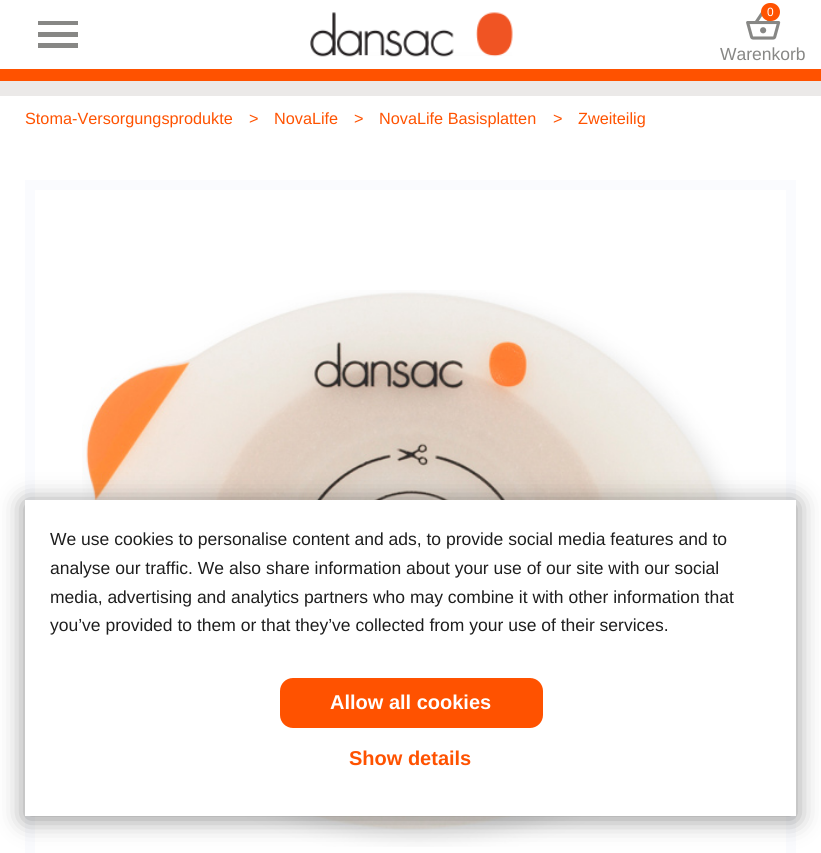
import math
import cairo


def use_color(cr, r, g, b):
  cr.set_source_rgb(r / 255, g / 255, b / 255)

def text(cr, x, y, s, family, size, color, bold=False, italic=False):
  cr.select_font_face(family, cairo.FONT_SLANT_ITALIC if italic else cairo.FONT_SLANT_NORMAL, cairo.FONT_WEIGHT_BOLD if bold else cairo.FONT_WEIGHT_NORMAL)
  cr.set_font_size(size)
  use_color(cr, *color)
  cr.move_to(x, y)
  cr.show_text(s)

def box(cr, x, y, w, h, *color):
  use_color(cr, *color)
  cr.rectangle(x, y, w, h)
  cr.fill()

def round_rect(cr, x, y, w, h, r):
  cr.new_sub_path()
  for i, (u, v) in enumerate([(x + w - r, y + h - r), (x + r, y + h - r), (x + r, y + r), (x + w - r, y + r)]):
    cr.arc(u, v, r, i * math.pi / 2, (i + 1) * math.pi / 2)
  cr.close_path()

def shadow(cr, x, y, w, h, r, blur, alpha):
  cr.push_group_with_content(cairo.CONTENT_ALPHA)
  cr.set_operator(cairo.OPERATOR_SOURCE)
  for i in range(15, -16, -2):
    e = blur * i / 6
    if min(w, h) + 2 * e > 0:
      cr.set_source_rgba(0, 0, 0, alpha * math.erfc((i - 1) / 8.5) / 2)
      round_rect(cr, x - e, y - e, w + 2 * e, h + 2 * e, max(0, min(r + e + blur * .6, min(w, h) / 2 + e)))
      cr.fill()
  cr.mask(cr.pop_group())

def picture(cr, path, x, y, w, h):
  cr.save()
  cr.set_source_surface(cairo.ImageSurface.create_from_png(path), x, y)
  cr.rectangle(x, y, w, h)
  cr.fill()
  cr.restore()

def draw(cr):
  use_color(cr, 255, 255, 255)
  cr.paint()
  box(cr, 0, 69, 821, 12, 255, 82, 0)
  use_color(cr, 135, 135, 133)
  cr.new_path()
  cr.move_to(38, 48)
  cr.line_to(78, 48)
  cr.line_to(78, 43)
  cr.line_to(38, 43)
  cr.close_path()
  cr.move_to(38, 37)
  cr.line_to(78, 37)
  cr.line_to(78, 32)
  cr.line_to(38, 32)
  cr.close_path()
  cr.move_to(38, 21)
  cr.line_to(38, 25)
  cr.line_to(78, 25)
  cr.line_to(78, 21)
  cr.close_path()
  cr.fill()
  picture(cr, "img_01.png", 310, 12, 203, 45)
  picture(cr, "img_02.png", 746, 10, 35, 30)
  use_color(cr, 255, 82, 0)
  round_rect(cr, 761, 3, 19, 18, 9)
  cr.fill()
  box(cr, 0, 81, 821, 15, 235, 233, 232)
  box(cr, 25, 180, 771, 673, 250, 251, 254)
  box(cr, 35, 190, 751, 663, 255, 255, 255)
  picture(cr, "img_03.png", 82, 290, 665, 557)
  use_color(cr, 33, 33, 33)
  shadow(cr, 25, 503, 771, 316, 0, 12.5, 0.5)
  box(cr, 25, 500, 771, 316, 255, 255, 255)
  use_color(cr, 255, 82, 0)
  round_rect(cr, 280, 678, 263, 50, 13)
  cr.fill()
  text(cr, 767, 16, "0", "Liberation Sans", 12, (255, 255, 255))
  text(cr, 720, 60, "Warenkorb", "Liberation Sans", 17.5, (135, 135, 133))
  text(cr, 25, 124, "Stoma-Versorgungsprodukte", "Liberation Sans", 16.25, (255, 82, 0))
  text(cr, 249, 124, ">", "Liberation Sans", 16.25, (255, 82, 0))
  text(cr, 274, 124, "NovaLife", "Liberation Sans", 16.25, (255, 82, 0))
  text(cr, 354, 124, ">", "Liberation Sans", 16.25, (255, 82, 0))
  text(cr, 379, 124, "NovaLife Basisplatten", "Liberation Sans", 16.25, (255, 82, 0))
  text(cr, 553, 124, ">", "Liberation Sans", 16.25, (255, 82, 0))
  text(cr, 578, 124, "Zweiteilig", "Liberation Sans", 16.25, (255, 82, 0))
  text(cr, 50, 545, "We use cookies to personalise content and ads, to provide social media features and to", "Liberation Sans", 17.5, (30, 30, 30))
  text(cr, 50, 574, "analyse our traffic. We also share information about your use of our site with our social", "Liberation Sans", 17.5, (30, 30, 30))
  text(cr, 50, 603, "media, advertising and analytics partners who may combine it with other information that", "Liberation Sans", 17.5, (30, 30, 30))
  text(cr, 50, 631, "you’ve provided to them or that they’ve collected from your use of their services.", "Liberation Sans", 17.5, (30, 30, 30))
  text(cr, 330, 709, "Allow all cookies", "Liberation Sans", 20, (255, 255, 255), bold=True)
  text(cr, 349, 765, "Show details", "Liberation Sans", 20, (255, 82, 0), bold=True)


surface = cairo.ImageSurface(cairo.FORMAT_RGB24, 821, 853)
cr = cairo.Context(surface)
options = cairo.FontOptions()
options.set_hint_metrics(cairo.HINT_METRICS_OFF)
options.set_hint_style(cairo.HINT_STYLE_NONE)
cr.set_font_options(options)
cr.set_miter_limit(4)
draw(cr)
surface.write_to_png("out.png")
